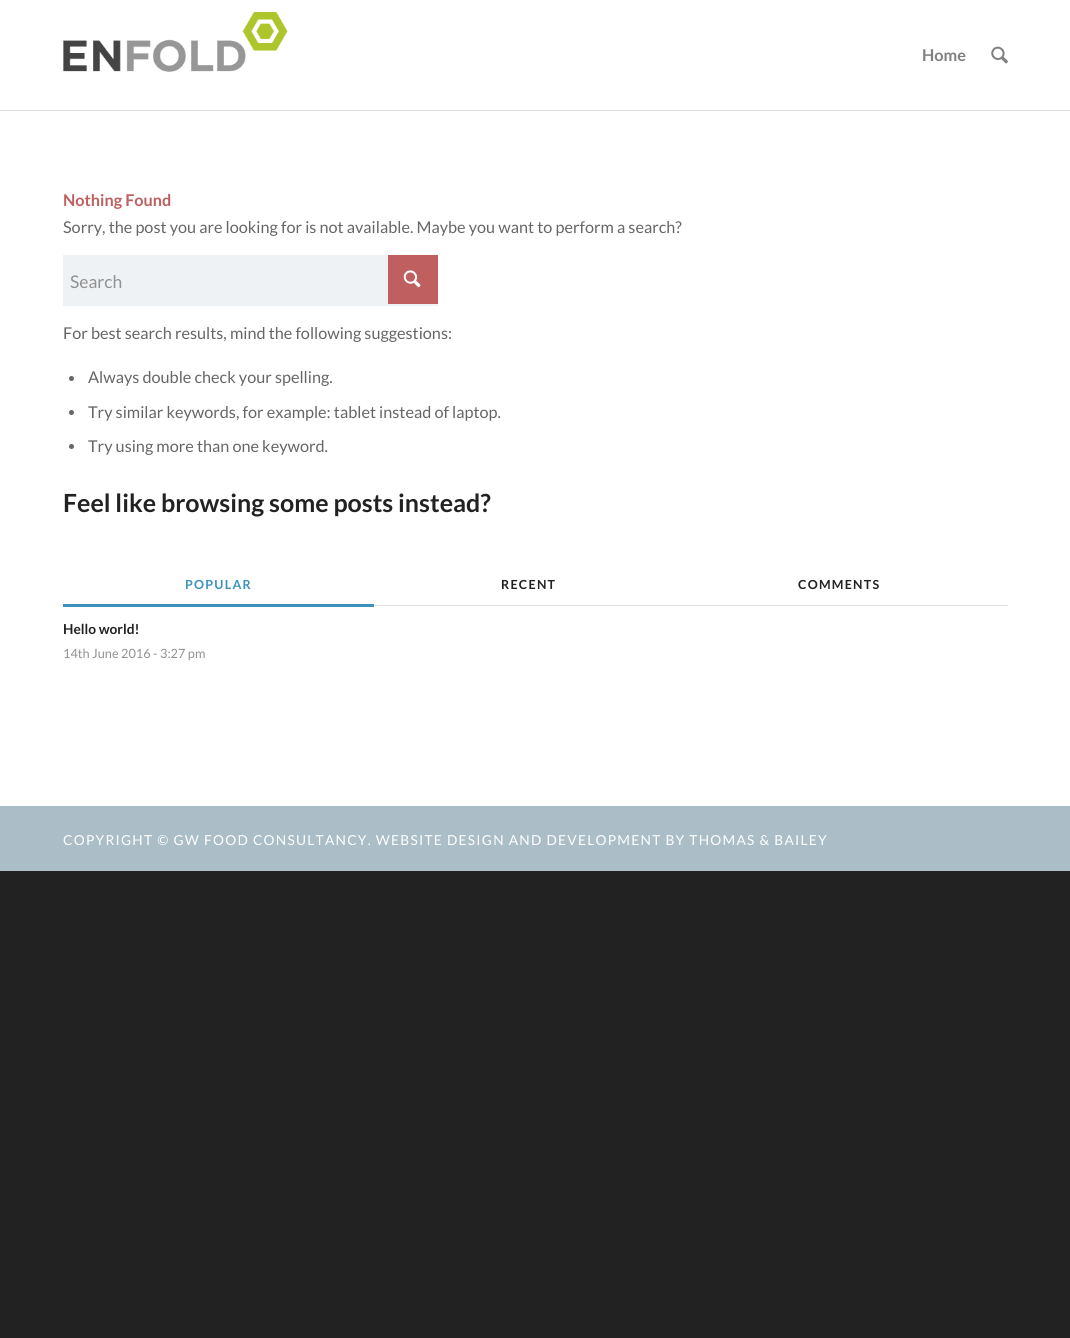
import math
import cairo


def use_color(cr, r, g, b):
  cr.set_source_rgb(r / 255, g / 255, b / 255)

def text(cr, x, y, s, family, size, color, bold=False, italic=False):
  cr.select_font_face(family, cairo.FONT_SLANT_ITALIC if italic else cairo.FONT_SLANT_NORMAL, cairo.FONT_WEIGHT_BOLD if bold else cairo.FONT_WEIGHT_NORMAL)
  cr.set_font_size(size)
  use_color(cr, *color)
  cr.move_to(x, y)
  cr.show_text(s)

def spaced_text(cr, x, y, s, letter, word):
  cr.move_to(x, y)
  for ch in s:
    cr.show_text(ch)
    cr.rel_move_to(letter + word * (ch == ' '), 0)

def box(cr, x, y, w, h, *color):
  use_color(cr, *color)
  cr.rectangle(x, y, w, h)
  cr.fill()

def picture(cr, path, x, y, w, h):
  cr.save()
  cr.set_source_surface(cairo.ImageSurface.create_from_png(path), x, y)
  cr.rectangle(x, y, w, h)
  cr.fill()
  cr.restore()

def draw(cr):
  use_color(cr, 34, 34, 34)
  cr.paint()
  box(cr, 0, 0, 1070, 110, 255, 255, 255)
  box(cr, 0, 110, 1070, 1, 225, 225, 225)
  picture(cr, "img_01.png", 63, 12, 225, 60)
  picture(cr, "img_02.png", 991, 46, 17, 18)
  box(cr, 0, 111, 1070, 695, 255, 255, 255)
  box(cr, 63, 255, 375, 51, 238, 242, 244)
  box(cr, 388, 255, 50, 49, 192, 95, 95)
  picture(cr, "img_03.png", 403, 270, 18, 18)
  use_color(cr, 102, 102, 102)
  cr.arc(71.5, 378.5, 2.5, 0, 2 * math.pi)
  cr.fill()
  cr.arc(71.5, 412.5, 2.5, 0, 2 * math.pi)
  cr.fill()
  cr.arc(71.5, 446.5, 2.5, 0, 2 * math.pi)
  cr.fill()
  box(cr, 374, 605, 634, 1, 225, 225, 225)
  box(cr, 63, 604, 311, 3, 59, 146, 186)
  box(cr, 0, 806, 1070, 65, 171, 189, 198)
  text(cr, 922, 61, "Home", "Lato", 16.25, (128, 128, 128), bold=True)
  text(cr, 63, 206, "Nothing Found", "Lato", 16.25, (192, 95, 95), bold=True)
  text(cr, 63, 233, "Sorry, the post you are looking for is not available. Maybe you want to perform a search?", "Lato", 16.25, (102, 102, 102))
  text(cr, 70, 288, "Search", "Lato", 17.5, (145, 145, 145))
  text(cr, 63, 339, "For best search results, mind the following suggestions:", "Lato", 16.25, (102, 102, 102))
  text(cr, 88, 383, "Always double check your spelling.", "Lato", 16.25, (102, 102, 102))
  text(cr, 88, 418, "Try similar keywords, for example: tablet instead of laptop.", "Lato", 16.25, (102, 102, 102))
  text(cr, 88, 452, "Try using more than one keyword.", "Lato", 16.25, (102, 102, 102))
  text(cr, 63, 512, "Feel like browsing some posts instead?", "Lato", 25, (34, 34, 34), bold=True)
  cr.set_font_size(12.5)
  use_color(cr, 59, 146, 186)
  spaced_text(cr, 185, 589, "POPULAR", 1.25, 0)
  use_color(cr, 34, 34, 34)
  spaced_text(cr, 501, 589, "RECENT", 1.25, 0)
  spaced_text(cr, 798, 589, "COMMENTS", 1.25, 0)
  text(cr, 63, 634, "Hello world!", "Lato", 13.75, (34, 34, 34), bold=True)
  text(cr, 63, 658, "14th June 2016 - 3:27 pm", "Lato", 12.75, (145, 145, 145))
  cr.set_font_size(13.75)
  use_color(cr, 255, 255, 255)
  spaced_text(cr, 63, 845, "COPYRIGHT © GW FOOD CONSULTANCY. WEBSITE DESIGN AND DEVELOPMENT BY THOMAS & BAILEY", 1.25, 0)


surface = cairo.ImageSurface(cairo.FORMAT_RGB24, 1070, 1338)
cr = cairo.Context(surface)
options = cairo.FontOptions()
options.set_hint_metrics(cairo.HINT_METRICS_OFF)
options.set_hint_style(cairo.HINT_STYLE_NONE)
cr.set_font_options(options)
cr.set_miter_limit(4)
draw(cr)
surface.write_to_png("out.png")
